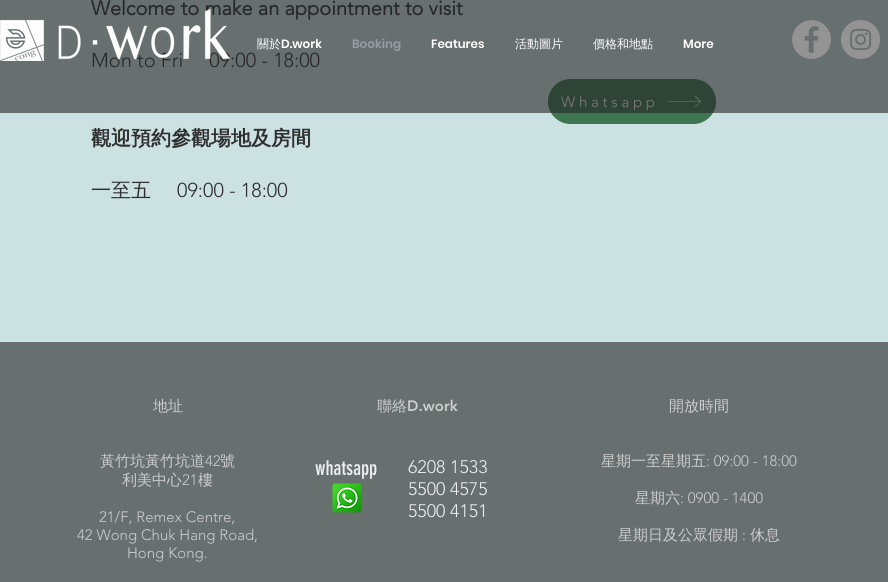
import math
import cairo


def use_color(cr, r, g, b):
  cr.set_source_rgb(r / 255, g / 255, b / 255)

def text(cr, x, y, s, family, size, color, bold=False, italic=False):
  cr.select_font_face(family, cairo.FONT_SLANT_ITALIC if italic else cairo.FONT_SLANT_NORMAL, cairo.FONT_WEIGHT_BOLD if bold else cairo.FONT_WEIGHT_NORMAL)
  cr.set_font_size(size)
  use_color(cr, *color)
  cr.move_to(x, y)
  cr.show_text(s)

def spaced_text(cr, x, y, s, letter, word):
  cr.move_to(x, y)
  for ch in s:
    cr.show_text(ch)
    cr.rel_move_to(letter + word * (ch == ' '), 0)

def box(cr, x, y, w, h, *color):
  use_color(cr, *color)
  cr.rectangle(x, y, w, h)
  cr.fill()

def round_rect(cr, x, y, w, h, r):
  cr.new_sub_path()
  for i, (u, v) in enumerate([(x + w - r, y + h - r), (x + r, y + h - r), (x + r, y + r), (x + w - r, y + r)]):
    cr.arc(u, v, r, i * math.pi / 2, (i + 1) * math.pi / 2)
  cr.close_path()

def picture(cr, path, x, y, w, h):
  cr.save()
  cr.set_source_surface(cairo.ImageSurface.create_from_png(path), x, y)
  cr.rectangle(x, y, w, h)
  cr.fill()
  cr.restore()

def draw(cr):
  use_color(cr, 204, 226, 226)
  cr.paint()
  use_color(cr, 63, 118, 82)
  round_rect(cr, 548, 79, 168, 45, 22.5)
  cr.fill()
  use_color(cr, 255, 255, 255)
  cr.new_path()
  cr.move_to(695.5, 96)
  cr.line_to(695, 96.5)
  cr.line_to(700, 101.5)
  cr.line_to(667.5, 101.5)
  cr.line_to(667.5, 102)
  cr.line_to(700, 102)
  cr.line_to(695, 106.5)
  cr.line_to(695.5, 107)
  cr.line_to(701, 101.5)
  cr.close_path()
  cr.fill()
  box(cr, 0, 342, 888, 240, 103, 111, 111)
  picture(cr, "img_04.png", 332, 483, 30, 30)
  text(cr, 91, 15, "Welcome to make an appointment to visit", "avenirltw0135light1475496", 20, (47, 47, 48), bold=True)
  text(cr, 91, 67, "Mon to Fri     09:00 - 18:00", "avenirltw0135light1475496 Light", 20, (47, 47, 48))
  text(cr, 91, 145, "觀迎預約參觀場地及房間", "WenQuanYi Zen Hei", 20, (47, 47, 48), bold=True)
  text(cr, 91, 197, "一至五", "WenQuanYi Zen Hei Medium", 20, (47, 47, 48))
  text(cr, 177, 197, "09:00 - 18:00", "avenirltw0135light1475496 Light", 20, (47, 47, 48))
  cr.set_font_size(15)
  use_color(cr, 255, 255, 255)
  spaced_text(cr, 561, 107, "Whatsapp", 3.75, 0)
  cr.set_source_rgba(0.137, 0.137, 0.137, 0.6)
  cr.rectangle(0, 0, 888, 113)
  cr.fill()
  picture(cr, "img_01.png", 0, 9, 230, 52)
  text(cr, 257, 48, "關於", "WenQuanYi Zen Hei Medium", 12, (255, 255, 255))
  text(cr, 281, 48, "D.work", "Poppins SemiBold", 12, (255, 255, 255))
  text(cr, 352, 48, "Booking", "Poppins SemiBold", 12, (153, 156, 166))
  text(cr, 431, 48, "Features", "Poppins SemiBold", 12, (255, 255, 255))
  text(cr, 515, 48, "活動圖片", "WenQuanYi Zen Hei Medium", 12, (255, 255, 255))
  text(cr, 593, 48, "價格和地點", "WenQuanYi Zen Hei Medium", 12, (255, 255, 255))
  text(cr, 683, 48, "More", "Poppins SemiBold", 12, (255, 255, 255))
  picture(cr, "img_02.png", 792, 20, 39, 39)
  picture(cr, "img_03.png", 841, 20, 39, 39)
  text(cr, 153, 411, "地址", "WenQuanYi Zen Hei Medium", 15, (204, 204, 204))
  text(cr, 377, 411, "聯絡", "WenQuanYi Zen Hei Medium", 15, (204, 204, 204))
  text(cr, 407, 411, "D.work", "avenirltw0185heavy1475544 Black", 15, (204, 204, 204))
  text(cr, 669, 411, "開放時間", "WenQuanYi Zen Hei Medium", 15, (204, 204, 204))
  text(cr, 100, 466, "黃竹坑黃竹坑道", "WenQuanYi Zen Hei Medium", 15, (204, 204, 204))
  text(cr, 205, 466, "42", "avenirltw0135light1475496 Light", 15, (204, 204, 204))
  text(cr, 220, 466, "號", "WenQuanYi Zen Hei Medium", 15, (204, 204, 204))
  text(cr, 122, 485, "利美中心", "WenQuanYi Zen Hei Medium", 15, (204, 204, 204))
  text(cr, 182, 485, "21", "avenirltw0135light1475496 Light", 15, (204, 204, 204))
  text(cr, 198, 485, "樓", "WenQuanYi Zen Hei Medium", 15, (204, 204, 204))
  text(cr, 99, 522, "21/F, Remex Centre,", "avenirltw0135light1475496 Light", 15, (204, 204, 204))
  text(cr, 77, 540, "42 Wong Chuk Hang Road,", "avenirltw0135light1475496 Light", 15, (204, 204, 204))
  text(cr, 127, 558, "Hong Kong.", "avenirltw0135light1475496 Light", 15, (204, 204, 204))
  text(cr, 315, 475, "whatsapp", "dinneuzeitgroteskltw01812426", 20, (237, 237, 238))
  text(cr, 408, 473, "6208 1533", "avenirltw0135light1475496 Light", 18, (237, 237, 238))
  text(cr, 408, 495, "5500 4575", "avenirltw0135light1475496 Light", 18, (237, 237, 238))
  text(cr, 408, 517, "5500 4151", "avenirltw0135light1475496 Light", 18, (237, 237, 238))
  text(cr, 601, 466, "星期一至星期五", "WenQuanYi Zen Hei Medium", 15, (204, 204, 204))
  text(cr, 706, 466, ": 09:00 - 18:00", "avenirltw0135light1475496 Light", 15, (204, 204, 204))
  text(cr, 635, 503, "星期六", "WenQuanYi Zen Hei Medium", 15, (204, 204, 204))
  text(cr, 680, 503, ": 0900 - 1400", "avenirltw0135light1475496 Light", 15, (204, 204, 204))
  text(cr, 618, 540, "星期日及公眾假期", "WenQuanYi Zen Hei Medium", 15, (204, 204, 204))
  text(cr, 742, 540, ":", "avenirltw0135light1475496 Light", 15, (204, 204, 204))
  text(cr, 750, 540, "休息", "WenQuanYi Zen Hei Medium", 15, (204, 204, 204))


surface = cairo.ImageSurface(cairo.FORMAT_RGB24, 888, 582)
cr = cairo.Context(surface)
options = cairo.FontOptions()
options.set_hint_metrics(cairo.HINT_METRICS_OFF)
options.set_hint_style(cairo.HINT_STYLE_NONE)
cr.set_font_options(options)
cr.set_miter_limit(4)
draw(cr)
surface.write_to_png("out.png")
